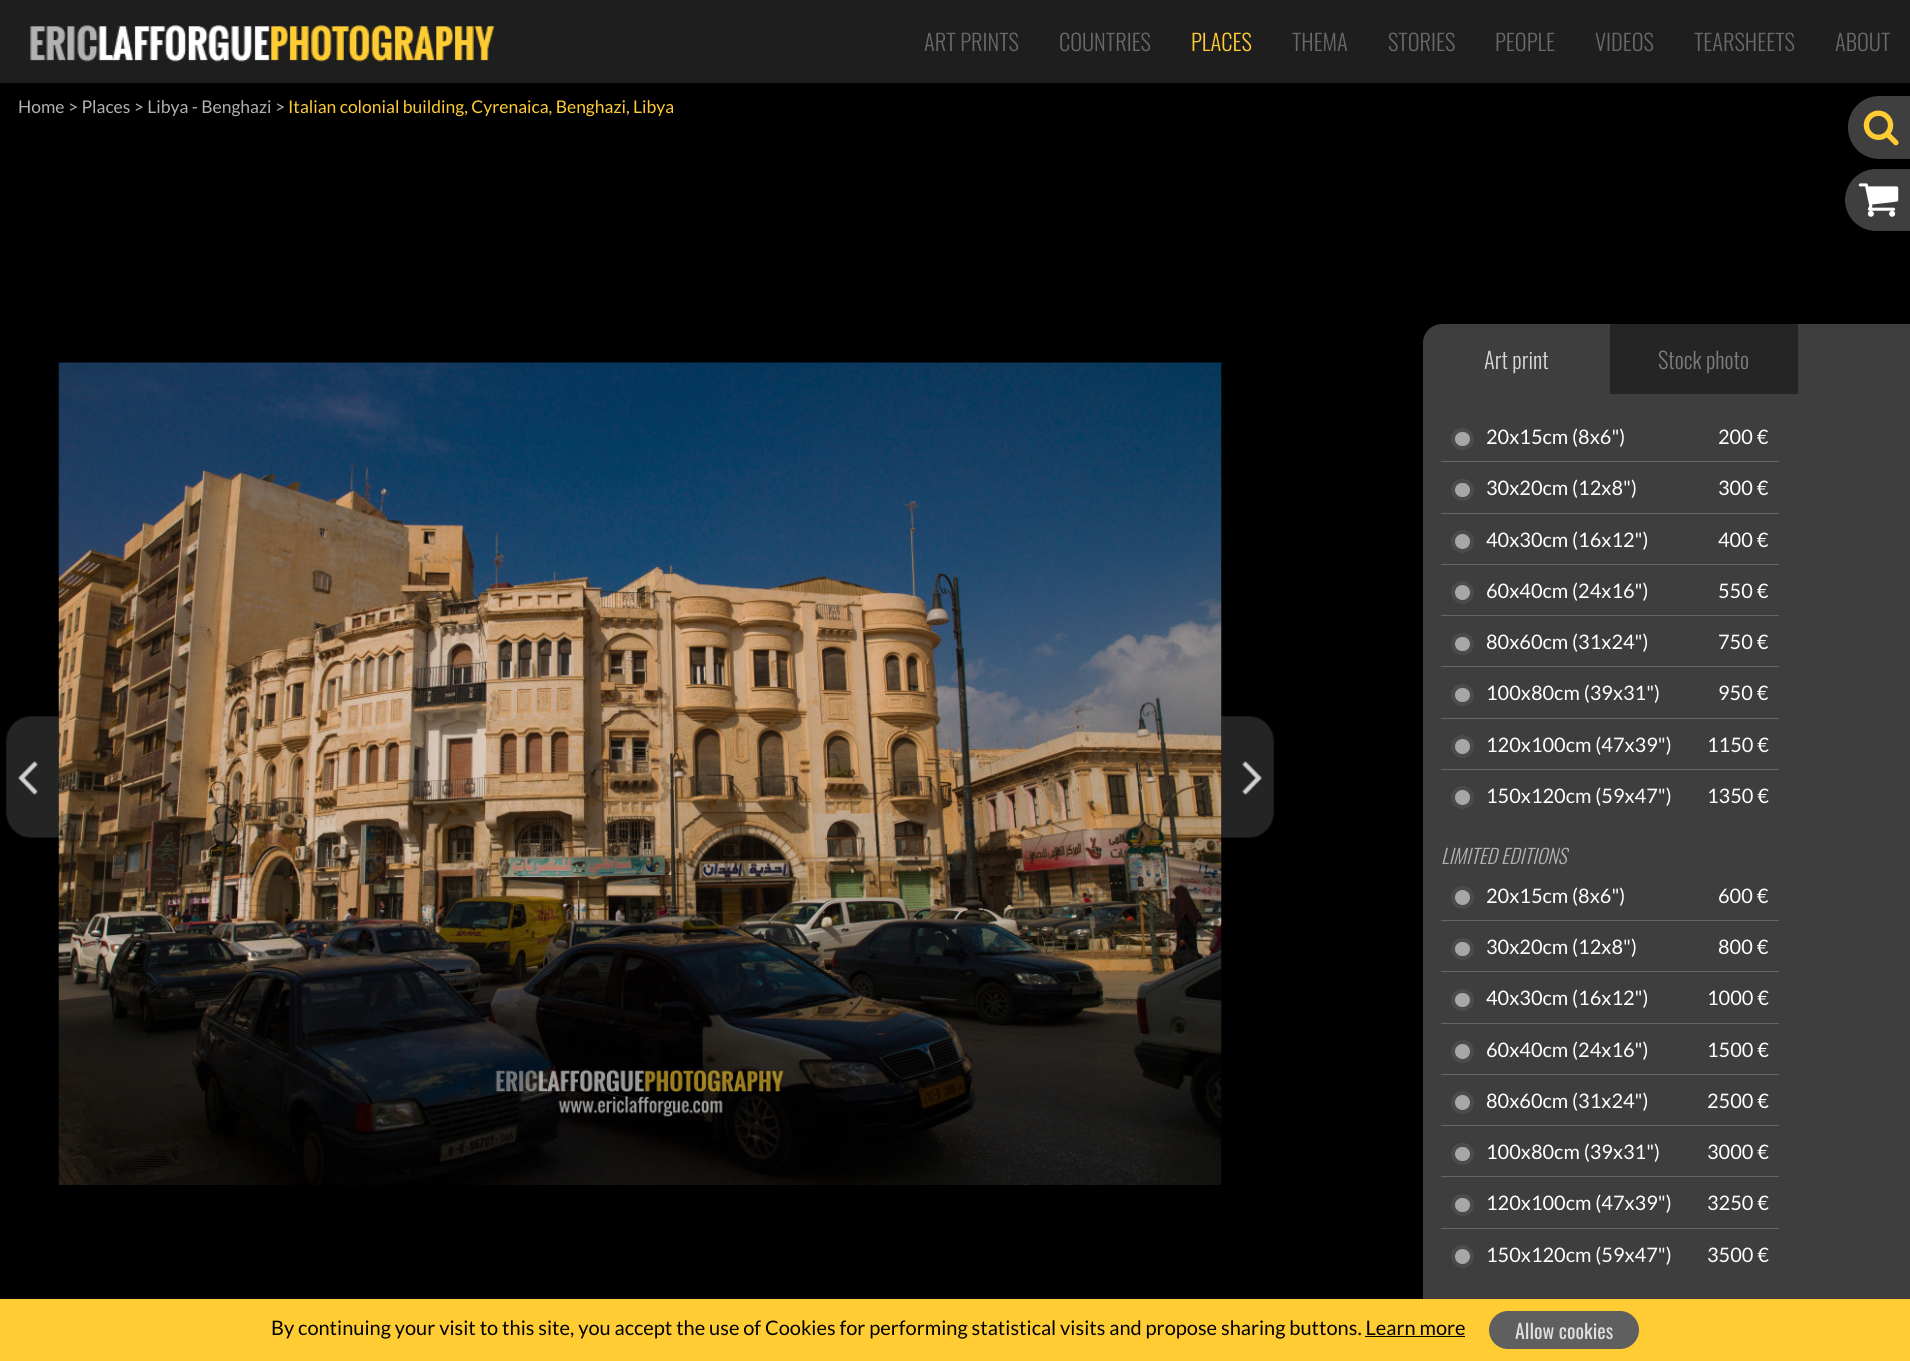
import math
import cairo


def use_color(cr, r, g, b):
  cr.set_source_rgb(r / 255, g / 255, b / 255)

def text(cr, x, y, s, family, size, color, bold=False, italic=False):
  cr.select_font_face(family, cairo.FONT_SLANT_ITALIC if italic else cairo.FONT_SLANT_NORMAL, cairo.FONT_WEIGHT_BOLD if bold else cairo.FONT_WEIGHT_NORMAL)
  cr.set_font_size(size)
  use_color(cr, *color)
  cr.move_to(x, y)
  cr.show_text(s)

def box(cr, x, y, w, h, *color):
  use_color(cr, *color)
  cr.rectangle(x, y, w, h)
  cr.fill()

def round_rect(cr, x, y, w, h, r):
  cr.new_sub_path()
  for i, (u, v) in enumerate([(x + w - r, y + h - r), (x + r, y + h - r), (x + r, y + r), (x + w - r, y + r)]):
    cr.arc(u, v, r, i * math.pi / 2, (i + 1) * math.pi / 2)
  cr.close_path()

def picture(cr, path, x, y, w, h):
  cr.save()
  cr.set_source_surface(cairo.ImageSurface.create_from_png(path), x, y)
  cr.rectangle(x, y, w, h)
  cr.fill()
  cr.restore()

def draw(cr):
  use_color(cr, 0, 0, 0)
  cr.paint()
  box(cr, 0, 0, 1910, 83, 30, 30, 30)
  picture(cr, "img_01.png", 30, 25, 465, 37)
  use_color(cr, 63, 63, 63)
  cr.new_path()
  cr.move_to(1879, 96)
  cr.line_to(1910, 96)
  cr.line_to(1910, 159)
  cr.line_to(1879, 159)
  cr.curve_to(1862, 159, 1848, 145, 1848, 128)
  cr.line_to(1848, 127)
  cr.curve_to(1848, 110, 1862, 96, 1879, 96)
  cr.close_path()
  cr.fill()
  picture(cr, "img_02.png", 1863, 110, 36, 36)
  cr.new_path()
  cr.move_to(1876, 169)
  cr.line_to(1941, 169)
  cr.line_to(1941, 231)
  cr.line_to(1876, 231)
  cr.curve_to(1859, 231, 1845, 217, 1845, 200)
  cr.curve_to(1845, 183, 1859, 169, 1876, 169)
  cr.close_path()
  cr.fill()
  picture(cr, "img_03.png", 1858, 183, 41, 34)
  picture(cr, "img_05.png", 58, 362, 1164, 823)
  picture(cr, "img_04.png", 6, 716, 53, 122)
  picture(cr, "img_06.png", 1221, 716, 53, 122)
  use_color(cr, 62, 62, 62)
  cr.new_path()
  cr.move_to(1442, 324)
  cr.line_to(1910, 324)
  cr.line_to(1910, 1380)
  cr.line_to(1442, 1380)
  cr.curve_to(1431.5, 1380, 1423, 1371.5, 1423, 1361)
  cr.line_to(1423, 343)
  cr.curve_to(1423, 332.5, 1431.5, 324, 1442, 324)
  cr.close_path()
  cr.fill()
  box(cr, 1610, 324, 188, 70, 37, 37, 37)
  box(cr, 1441, 461, 338, 1, 101, 101, 101)
  use_color(cr, 167, 167, 167)
  round_rect(cr, 1453, 430, 19, 18, 9)
  cr.fill_preserve()
  use_color(cr, 75, 75, 75)
  cr.set_line_width(4)
  cr.stroke()
  box(cr, 1441, 513, 338, 1, 101, 101, 101)
  use_color(cr, 167, 167, 167)
  round_rect(cr, 1453, 481, 19, 18, 9)
  cr.fill_preserve()
  use_color(cr, 75, 75, 75)
  cr.stroke()
  box(cr, 1441, 564, 338, 1, 101, 101, 101)
  use_color(cr, 167, 167, 167)
  cr.arc(1462.5, 541.5, 9.5, 0, 2 * math.pi)
  cr.fill_preserve()
  use_color(cr, 75, 75, 75)
  cr.stroke()
  box(cr, 1441, 615, 338, 1, 101, 101, 101)
  use_color(cr, 167, 167, 167)
  cr.arc(1462.5, 592.5, 9.5, 0, 2 * math.pi)
  cr.fill_preserve()
  use_color(cr, 75, 75, 75)
  cr.stroke()
  box(cr, 1441, 666, 338, 1, 101, 101, 101)
  use_color(cr, 167, 167, 167)
  round_rect(cr, 1453, 635, 19, 18, 9)
  cr.fill_preserve()
  use_color(cr, 75, 75, 75)
  cr.stroke()
  box(cr, 1441, 718, 338, 1, 101, 101, 101)
  use_color(cr, 167, 167, 167)
  round_rect(cr, 1453, 686, 19, 18, 9)
  cr.fill_preserve()
  use_color(cr, 75, 75, 75)
  cr.stroke()
  box(cr, 1441, 769, 338, 1, 101, 101, 101)
  use_color(cr, 167, 167, 167)
  cr.arc(1462.5, 746.5, 9.5, 0, 2 * math.pi)
  cr.fill_preserve()
  use_color(cr, 75, 75, 75)
  cr.stroke()
  use_color(cr, 167, 167, 167)
  cr.arc(1462.5, 797.5, 9.5, 0, 2 * math.pi)
  cr.fill_preserve()
  use_color(cr, 75, 75, 75)
  cr.stroke()
  box(cr, 1441, 920, 338, 1, 101, 101, 101)
  use_color(cr, 167, 167, 167)
  cr.arc(1462.5, 897.5, 9.5, 0, 2 * math.pi)
  cr.fill_preserve()
  use_color(cr, 75, 75, 75)
  cr.stroke()
  box(cr, 1441, 971, 338, 1, 101, 101, 101)
  use_color(cr, 167, 167, 167)
  round_rect(cr, 1453, 940, 19, 18, 9)
  cr.fill_preserve()
  use_color(cr, 75, 75, 75)
  cr.stroke()
  box(cr, 1441, 1023, 338, 1, 101, 101, 101)
  use_color(cr, 167, 167, 167)
  round_rect(cr, 1453, 991, 19, 18, 9)
  cr.fill_preserve()
  use_color(cr, 75, 75, 75)
  cr.stroke()
  box(cr, 1441, 1074, 338, 1, 101, 101, 101)
  use_color(cr, 167, 167, 167)
  cr.arc(1462.5, 1051.5, 9.5, 0, 2 * math.pi)
  cr.fill_preserve()
  use_color(cr, 75, 75, 75)
  cr.stroke()
  box(cr, 1441, 1125, 338, 1, 101, 101, 101)
  use_color(cr, 167, 167, 167)
  cr.arc(1462.5, 1102.5, 9.5, 0, 2 * math.pi)
  cr.fill_preserve()
  use_color(cr, 75, 75, 75)
  cr.stroke()
  box(cr, 1441, 1176, 338, 1, 101, 101, 101)
  use_color(cr, 167, 167, 167)
  round_rect(cr, 1453, 1145, 19, 18, 9)
  cr.fill_preserve()
  use_color(cr, 75, 75, 75)
  cr.stroke()
  box(cr, 1441, 1228, 338, 1, 101, 101, 101)
  use_color(cr, 167, 167, 167)
  round_rect(cr, 1453, 1196, 19, 18, 9)
  cr.fill_preserve()
  use_color(cr, 75, 75, 75)
  cr.stroke()
  use_color(cr, 167, 167, 167)
  cr.arc(1462.5, 1256.5, 9.5, 0, 2 * math.pi)
  cr.fill_preserve()
  use_color(cr, 75, 75, 75)
  cr.stroke()
  box(cr, 0, 1299, 1910, 62, 255, 204, 51)
  box(cr, 1365, 1336, 100, 1, 0, 0, 0)
  use_color(cr, 95, 95, 95)
  round_rect(cr, 1489, 1311, 150, 38, 19)
  cr.fill()
  text(cr, 924, 51, "ART PRINTS", "Oswald Light", 22.5, (104, 104, 104))
  text(cr, 1059, 51, "COUNTRIES", "Oswald Light", 22.5, (104, 104, 104))
  text(cr, 1191, 51, "PLACES", "Oswald Light", 22.5, (255, 204, 51))
  text(cr, 1292, 51, "THEMA", "Oswald Light", 22.5, (104, 104, 104))
  text(cr, 1388, 51, "STORIES", "Oswald Light", 22.5, (104, 104, 104))
  text(cr, 1495, 51, "PEOPLE", "Oswald Light", 22.5, (104, 104, 104))
  text(cr, 1595, 51, "VIDEOS", "Oswald Light", 22.5, (104, 104, 104))
  text(cr, 1694, 51, "TEARSHEETS", "Oswald Light", 22.5, (104, 104, 104))
  text(cr, 1835, 51, "ABOUT", "Oswald Light", 22.5, (104, 104, 104))
  text(cr, 18, 113, "Home > Places > Libya - Benghazi >", "Lato", 17.5, (178, 178, 178))
  text(cr, 288, 113, "Italian colonial building, Cyrenaica, Benghazi, Libya", "Lato", 17.5, (255, 204, 51))
  text(cr, 1484, 369, "Art print", "Oswald Light", 22.5, (216, 216, 216))
  text(cr, 1658, 369, "Stock photo", "Oswald Light", 22.5, (124, 124, 124))
  text(cr, 1486, 444, "20x15cm (8x6\")", "Lato", 20, (255, 255, 255))
  text(cr, 1718, 444, "200 €", "Lato", 20, (255, 255, 255))
  text(cr, 1486, 495, "30x20cm (12x8\")", "Lato", 20, (255, 255, 255))
  text(cr, 1718, 495, "300 €", "Lato", 20, (255, 255, 255))
  text(cr, 1486, 547, "40x30cm (16x12\")", "Lato", 20, (255, 255, 255))
  text(cr, 1718, 547, "400 €", "Lato", 20, (255, 255, 255))
  text(cr, 1486, 598, "60x40cm (24x16\")", "Lato", 20, (255, 255, 255))
  text(cr, 1718, 598, "550 €", "Lato", 20, (255, 255, 255))
  text(cr, 1486, 649, "80x60cm (31x24\")", "Lato", 20, (255, 255, 255))
  text(cr, 1718, 649, "750 €", "Lato", 20, (255, 255, 255))
  text(cr, 1486, 700, "100x80cm (39x31\")", "Lato", 20, (255, 255, 255))
  text(cr, 1718, 700, "950 €", "Lato", 20, (255, 255, 255))
  text(cr, 1486, 752, "120x100cm (47x39\")", "Lato", 20, (255, 255, 255))
  text(cr, 1707, 752, "1150 €", "Lato", 20, (255, 255, 255))
  text(cr, 1486, 803, "150x120cm (59x47\")", "Lato", 20, (255, 255, 255))
  text(cr, 1707, 803, "1350 €", "Lato", 20, (255, 255, 255))
  text(cr, 1441, 864, "LIMITED EDITIONS", "Oswald Light", 20, (178, 178, 178), italic=True)
  text(cr, 1486, 903, "20x15cm (8x6\")", "Lato", 20, (255, 255, 255))
  text(cr, 1718, 903, "600 €", "Lato", 20, (255, 255, 255))
  text(cr, 1486, 954, "30x20cm (12x8\")", "Lato", 20, (255, 255, 255))
  text(cr, 1718, 954, "800 €", "Lato", 20, (255, 255, 255))
  text(cr, 1486, 1005, "40x30cm (16x12\")", "Lato", 20, (255, 255, 255))
  text(cr, 1707, 1005, "1000 €", "Lato", 20, (255, 255, 255))
  text(cr, 1486, 1057, "60x40cm (24x16\")", "Lato", 20, (255, 255, 255))
  text(cr, 1707, 1057, "1500 €", "Lato", 20, (255, 255, 255))
  text(cr, 1486, 1108, "80x60cm (31x24\")", "Lato", 20, (255, 255, 255))
  text(cr, 1707, 1108, "2500 €", "Lato", 20, (255, 255, 255))
  text(cr, 1486, 1159, "100x80cm (39x31\")", "Lato", 20, (255, 255, 255))
  text(cr, 1707, 1159, "3000 €", "Lato", 20, (255, 255, 255))
  text(cr, 1486, 1210, "120x100cm (47x39\")", "Lato", 20, (255, 255, 255))
  text(cr, 1707, 1210, "3250 €", "Lato", 20, (255, 255, 255))
  text(cr, 1486, 1262, "150x120cm (59x47\")", "Lato", 20, (255, 255, 255))
  text(cr, 1707, 1262, "3500 €", "Lato", 20, (255, 255, 255))
  text(cr, 271, 1335, "By continuing your visit to this site, you accept the use of Cookies for performing statistical visits and propose sharing buttons. Learn more", "Lato", 20, (0, 0, 0))
  text(cr, 1515, 1339, "Allow cookies", "Oswald", 20, (223, 223, 223))


surface = cairo.ImageSurface(cairo.FORMAT_RGB24, 1910, 1361)
cr = cairo.Context(surface)
options = cairo.FontOptions()
options.set_hint_metrics(cairo.HINT_METRICS_OFF)
options.set_hint_style(cairo.HINT_STYLE_NONE)
cr.set_font_options(options)
cr.set_miter_limit(4)
draw(cr)
surface.write_to_png("out.png")
